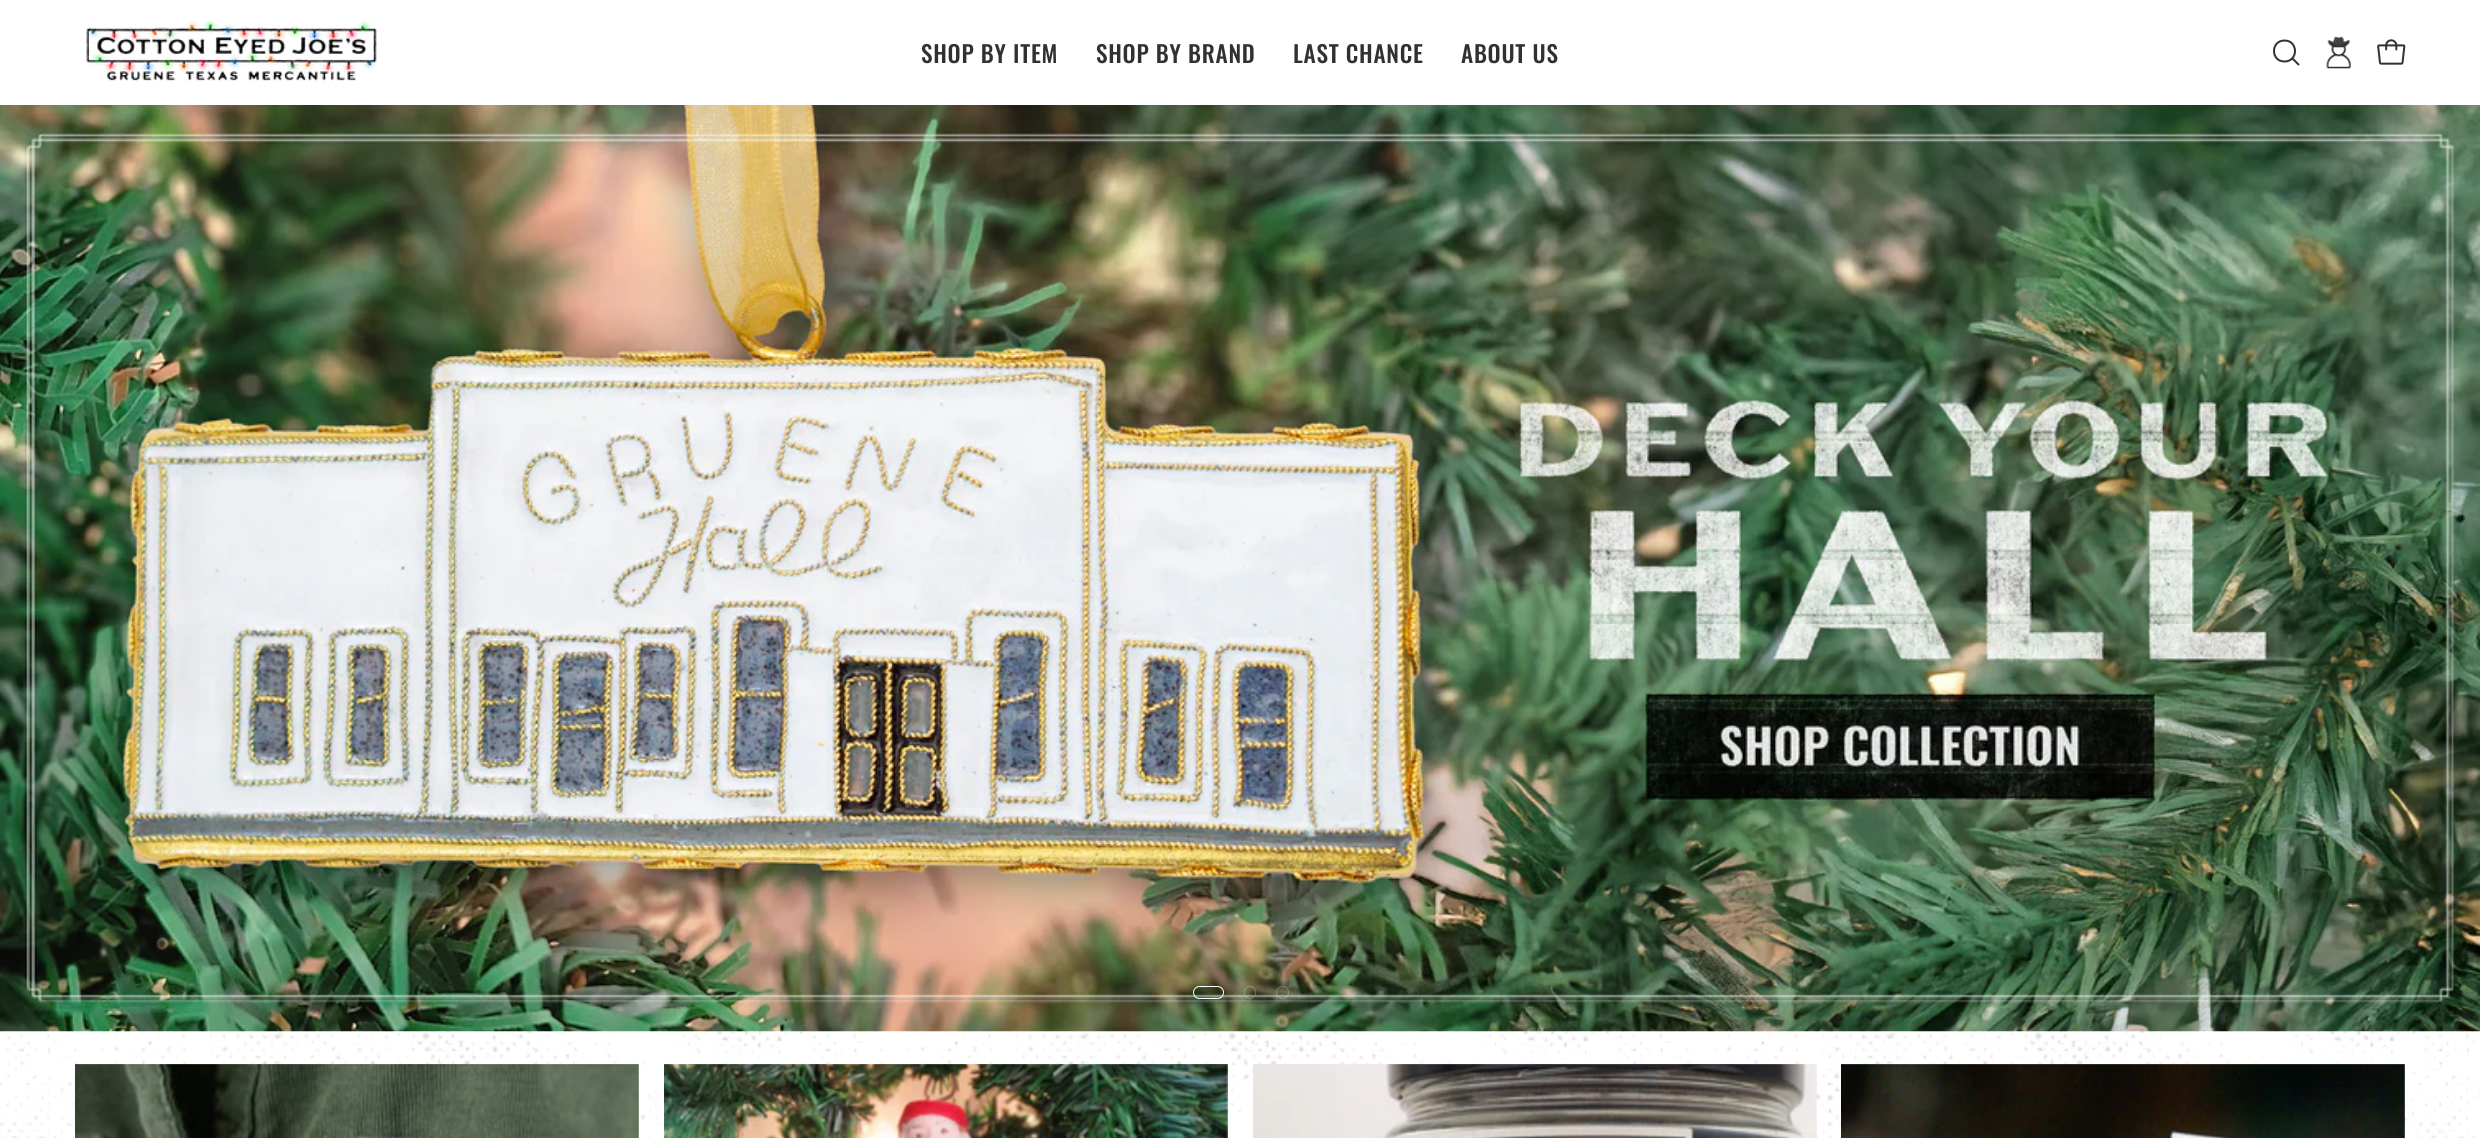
import math
import cairo


def use_color(cr, r, g, b):
  cr.set_source_rgb(r / 255, g / 255, b / 255)

def spaced_text(cr, x, y, s, letter, word):
  cr.move_to(x, y)
  for ch in s:
    cr.show_text(ch)
    cr.rel_move_to(letter + word * (ch == ' '), 0)

def round_rect(cr, x, y, w, h, r):
  cr.new_sub_path()
  for i, (u, v) in enumerate([(x + w - r, y + h - r), (x + r, y + h - r), (x + r, y + r), (x + w - r, y + r)]):
    cr.arc(u, v, r, i * math.pi / 2, (i + 1) * math.pi / 2)
  cr.close_path()

def picture(cr, path, x, y, w, h):
  cr.save()
  cr.set_source_surface(cairo.ImageSurface.create_from_png(path), x, y)
  cr.rectangle(x, y, w, h)
  cr.fill()
  cr.restore()

def draw(cr):
  use_color(cr, 255, 255, 255)
  cr.paint()
  picture(cr, "img_01.png", 0, 1031, 2480, 1)
  picture(cr, "img_02.png", 86, 20, 291, 61)
  cr.new_path()
  cr.move_to(2284.5, 61.5)
  cr.curve_to(2298.5, 61.5, 2298.5, 40.5, 2284.5, 40.5)
  cr.curve_to(2270.5, 40.5, 2270.5, 61.5, 2284.5, 61.5)
  cr.close_path()
  cr.move_to(2292.5, 58.5)
  cr.line_to(2298.5, 64.5)
  use_color(cr, 49, 49, 49)
  cr.set_line_cap(cairo.LINE_CAP_ROUND)
  cr.set_line_join(cairo.LINE_JOIN_ROUND)
  cr.stroke()
  picture(cr, "img_03.png", 2326, 36, 26, 33)
  picture(cr, "img_04.png", 2377, 39, 29, 26)
  picture(cr, "img_05.png", 0, 1031, 2480, 1)
  picture(cr, "img_07.png", 0, 1031, 2480, 107)
  picture(cr, "img_06.png", 0, 105, 2480, 927)
  round_rect(cr, 1193.5, 986.5, 30, 12, 6)
  use_color(cr, 255, 255, 255)
  cr.set_line_width(1)
  cr.set_line_cap(cairo.LINE_CAP_BUTT)
  cr.set_line_join(cairo.LINE_JOIN_MITER)
  cr.stroke()
  round_rect(cr, 1244.5, 986.5, 11, 12, 5.5)
  cr.set_source_rgba(1, 1, 1, 0.25)
  cr.stroke()
  cr.arc(1282.5, 992.5, 6, 0, 2 * math.pi)
  cr.stroke()
  picture(cr, "img_08.png", 75, 1064, 564, 74)
  cr.set_source_rgba(0, 0, 0, 0.1)
  cr.rectangle(75, 1064, 564, 74)
  cr.fill()
  picture(cr, "img_09.png", 664, 1064, 564, 74)
  picture(cr, "img_10.png", 1253, 1064, 564, 74)
  picture(cr, "img_11.png", 1841, 1064, 564, 74)
  cr.select_font_face("Oswald Medium")
  cr.set_font_size(23.25)
  use_color(cr, 49, 49, 49)
  spaced_text(cr, 921, 63, "SHOP BY ITEM", 0.75, 0)
  spaced_text(cr, 1096, 63, "SHOP BY BRAND", 0.75, 0)
  spaced_text(cr, 1293, 63, "LAST CHANCE", 0.75, 0)
  spaced_text(cr, 1461, 63, "ABOUT US", 0.75, 0)


surface = cairo.ImageSurface(cairo.FORMAT_RGB24, 2480, 1138)
cr = cairo.Context(surface)
options = cairo.FontOptions()
options.set_hint_metrics(cairo.HINT_METRICS_OFF)
options.set_hint_style(cairo.HINT_STYLE_NONE)
cr.set_font_options(options)
cr.set_miter_limit(4)
draw(cr)
surface.write_to_png("out.png")
